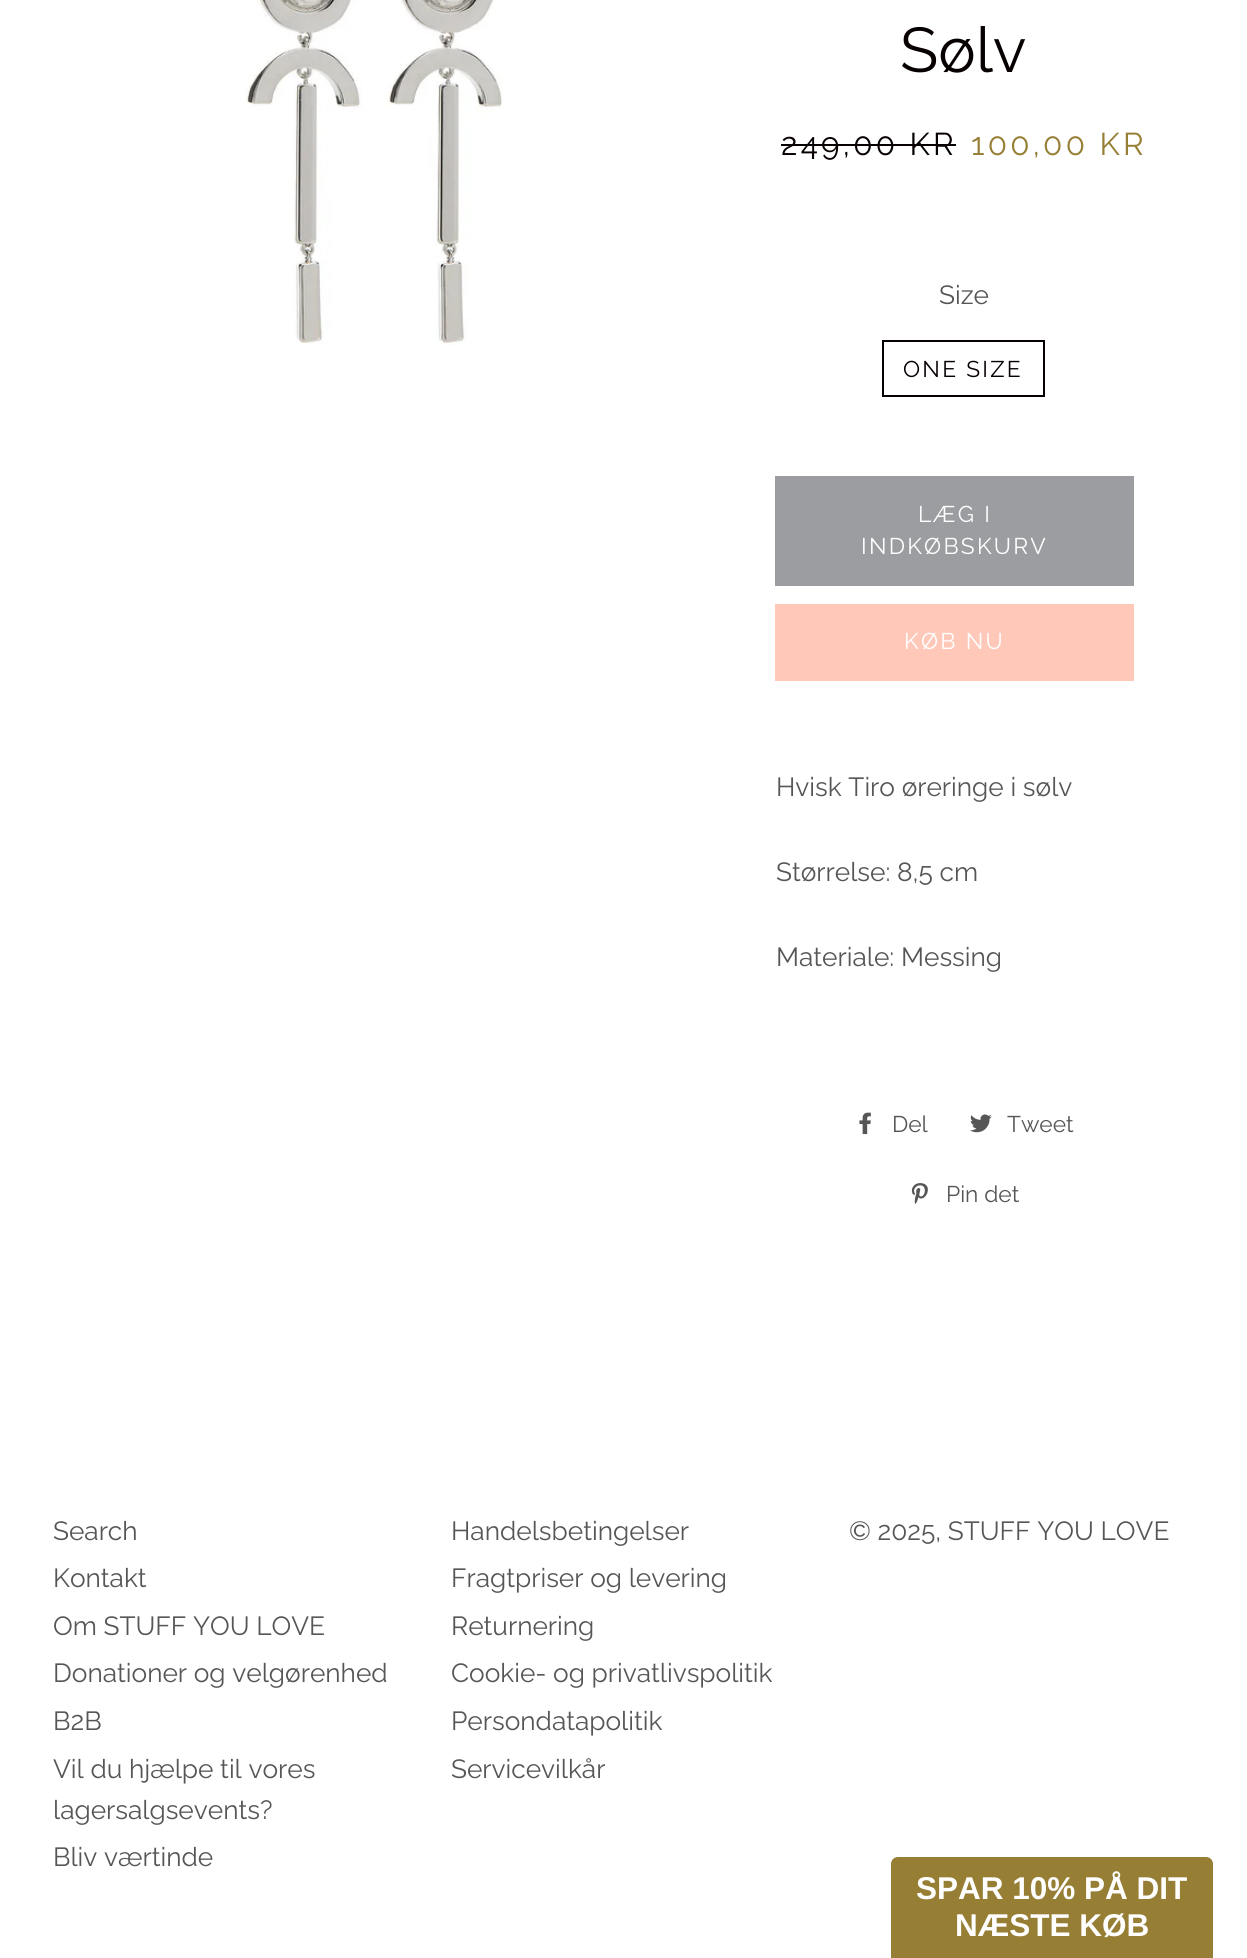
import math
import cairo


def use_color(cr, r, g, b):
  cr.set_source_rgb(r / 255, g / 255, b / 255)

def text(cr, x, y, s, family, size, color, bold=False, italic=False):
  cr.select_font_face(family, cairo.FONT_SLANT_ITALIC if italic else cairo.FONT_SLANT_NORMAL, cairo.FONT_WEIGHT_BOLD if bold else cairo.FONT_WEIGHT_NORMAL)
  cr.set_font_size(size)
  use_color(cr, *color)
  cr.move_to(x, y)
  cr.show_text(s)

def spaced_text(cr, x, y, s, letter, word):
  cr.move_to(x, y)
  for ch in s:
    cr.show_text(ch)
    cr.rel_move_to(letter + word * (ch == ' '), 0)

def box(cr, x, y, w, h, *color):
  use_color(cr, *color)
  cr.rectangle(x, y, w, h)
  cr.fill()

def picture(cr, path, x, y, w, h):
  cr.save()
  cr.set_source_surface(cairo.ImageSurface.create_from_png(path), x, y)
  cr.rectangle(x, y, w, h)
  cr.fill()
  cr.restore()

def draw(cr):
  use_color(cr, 255, 255, 255)
  cr.paint()
  picture(cr, "img_01.png", 245, 0, 258, 345)
  box(cr, 781, 144, 175, 2, 7, 0, 0)
  cr.rectangle(883, 341, 161, 55)
  cr.stroke()
  box(cr, 775, 476, 359, 110, 156, 157, 161)
  box(cr, 775, 604, 359, 77, 255, 200, 185)
  picture(cr, "img_02.png", 859, 1112, 12, 23)
  picture(cr, "img_03.png", 970, 1114, 22, 19)
  picture(cr, "img_04.png", 911, 1183, 17, 21)
  use_color(cr, 150, 126, 52)
  cr.new_path()
  cr.move_to(898, 1857)
  cr.line_to(1206, 1857)
  cr.curve_to(1210, 1857, 1213, 1860, 1213, 1864)
  cr.line_to(1213, 1958)
  cr.line_to(891, 1958)
  cr.line_to(891, 1864)
  cr.curve_to(891, 1860, 894, 1857, 898, 1857)
  cr.close_path()
  cr.fill()
  text(cr, 900, 72, "Sølv", "Raleway", 63, (7, 0, 0))
  cr.set_font_size(31.5)
  spaced_text(cr, 781, 155, "249,00 KR", 3.25, 0)
  use_color(cr, 150, 126, 52)
  spaced_text(cr, 971, 155, "100,00 KR", 3.25, 0)
  text(cr, 939, 304, "Size", "Raleway", 26.25, (86, 86, 86))
  cr.set_font_size(22.75)
  use_color(cr, 7, 0, 0)
  spaced_text(cr, 903, 377, "ONE SIZE", 2.25, 0)
  use_color(cr, 255, 255, 255)
  spaced_text(cr, 918, 522, "LÆG I", 2.25, 0)
  spaced_text(cr, 861, 554, "INDKØBSKURV", 2.25, 0)
  spaced_text(cr, 904, 649, "KØB NU", 2.25, 0)
  text(cr, 776, 796, "Hvisk Tiro øreringe i sølv", "Raleway", 26.25, (86, 86, 86))
  text(cr, 776, 881, "Størrelse: 8,5 cm", "Raleway", 26.25, (86, 86, 86))
  text(cr, 776, 966, "Materiale: Messing", "Raleway", 26.25, (86, 86, 86))
  text(cr, 892, 1132, "Del", "Raleway", 22.75, (86, 86, 86))
  text(cr, 1007, 1132, "Tweet", "Raleway", 22.75, (86, 86, 86))
  text(cr, 946, 1202, "Pin det", "Raleway", 22.75, (86, 86, 86))
  text(cr, 53, 1540, "Search", "Raleway", 26.25, (86, 86, 86))
  text(cr, 53, 1587, "Kontakt", "Raleway", 26.25, (86, 86, 86))
  text(cr, 53, 1635, "Om STUFF YOU LOVE", "Raleway", 26.25, (86, 86, 86))
  text(cr, 53, 1682, "Donationer og velgørenhed", "Raleway", 26.25, (86, 86, 86))
  text(cr, 53, 1730, "B2B", "Raleway", 26.25, (86, 86, 86))
  text(cr, 53, 1778, "Vil du hjælpe til vores", "Raleway", 26.25, (86, 86, 86))
  text(cr, 53, 1819, "lagersalgsevents?", "Raleway", 26.25, (86, 86, 86))
  text(cr, 53, 1866, "Bliv værtinde", "Raleway", 26.25, (86, 86, 86))
  text(cr, 451, 1540, "Handelsbetingelser", "Raleway", 26.25, (86, 86, 86))
  text(cr, 451, 1587, "Fragtpriser og levering", "Raleway", 26.25, (86, 86, 86))
  text(cr, 451, 1635, "Returnering", "Raleway", 26.25, (86, 86, 86))
  text(cr, 451, 1682, "Cookie- og privatlivspolitik", "Raleway", 26.25, (86, 86, 86))
  text(cr, 451, 1730, "Persondatapolitik", "Raleway", 26.25, (86, 86, 86))
  text(cr, 451, 1778, "Servicevilkår", "Raleway", 26.25, (86, 86, 86))
  text(cr, 849, 1540, "© 2025, STUFF YOU LOVE", "Raleway", 26.25, (86, 86, 86))
  text(cr, 916, 1899, "SPAR 10% PÅ DIT", "Liberation Sans", 31.5, (255, 255, 255), bold=True)
  text(cr, 955, 1936, "NÆSTE KØB", "Liberation Sans", 31.5, (255, 255, 255), bold=True)


surface = cairo.ImageSurface(cairo.FORMAT_RGB24, 1247, 1958)
cr = cairo.Context(surface)
options = cairo.FontOptions()
options.set_hint_metrics(cairo.HINT_METRICS_OFF)
options.set_hint_style(cairo.HINT_STYLE_NONE)
cr.set_font_options(options)
cr.set_miter_limit(4)
draw(cr)
surface.write_to_png("out.png")
